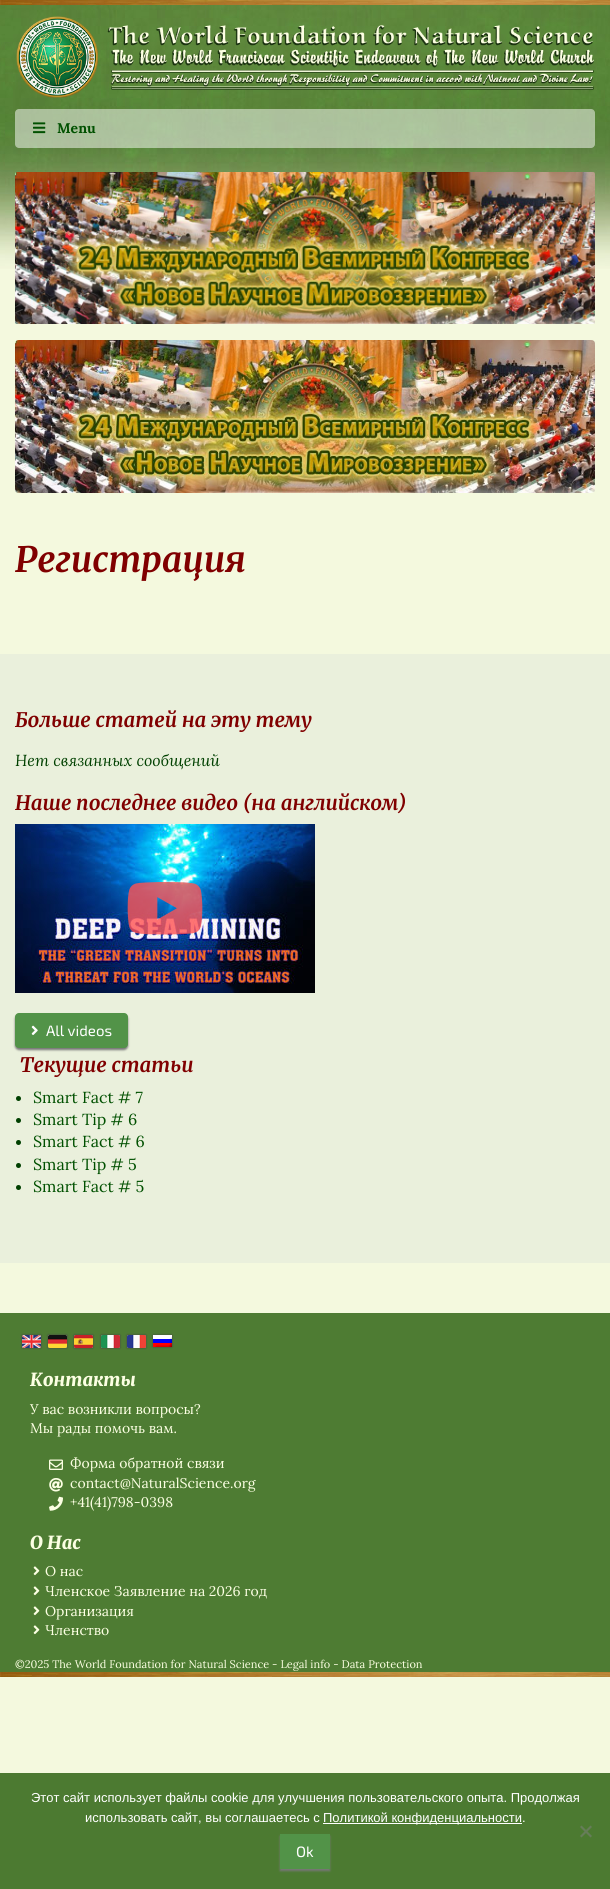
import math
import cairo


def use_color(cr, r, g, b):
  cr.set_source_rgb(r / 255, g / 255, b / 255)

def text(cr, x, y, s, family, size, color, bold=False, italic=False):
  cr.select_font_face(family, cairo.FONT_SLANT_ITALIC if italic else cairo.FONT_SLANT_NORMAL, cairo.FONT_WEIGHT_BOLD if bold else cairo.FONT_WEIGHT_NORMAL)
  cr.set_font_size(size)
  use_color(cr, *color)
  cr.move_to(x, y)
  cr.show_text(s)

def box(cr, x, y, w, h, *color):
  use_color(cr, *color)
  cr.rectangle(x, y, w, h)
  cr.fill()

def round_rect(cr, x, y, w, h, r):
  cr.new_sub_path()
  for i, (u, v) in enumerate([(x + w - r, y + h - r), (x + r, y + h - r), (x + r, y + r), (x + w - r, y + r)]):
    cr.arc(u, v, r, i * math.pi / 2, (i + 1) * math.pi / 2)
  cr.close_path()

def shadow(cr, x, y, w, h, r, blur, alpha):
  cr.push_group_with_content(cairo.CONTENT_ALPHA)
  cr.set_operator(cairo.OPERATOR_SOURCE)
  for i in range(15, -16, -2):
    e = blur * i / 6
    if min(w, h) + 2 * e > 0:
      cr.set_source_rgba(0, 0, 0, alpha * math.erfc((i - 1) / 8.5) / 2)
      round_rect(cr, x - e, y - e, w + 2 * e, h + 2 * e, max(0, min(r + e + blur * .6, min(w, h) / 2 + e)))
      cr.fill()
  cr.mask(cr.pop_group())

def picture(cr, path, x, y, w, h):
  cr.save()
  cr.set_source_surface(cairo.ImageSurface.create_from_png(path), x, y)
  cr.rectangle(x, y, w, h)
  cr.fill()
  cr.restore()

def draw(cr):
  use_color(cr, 244, 249, 222)
  cr.paint()
  picture(cr, "img_01.png", 0, 5, 610, 264)
  picture(cr, "img_02.png", 0, 0, 610, 5)
  picture(cr, "img_03.png", 16, 16, 578, 82)
  cr.set_source_rgba(1, 1, 1, 0.5)
  round_rect(cr, 15, 109, 580, 39, 4)
  cr.fill()
  picture(cr, "img_04.png", 33, 122, 13, 12)
  picture(cr, "img_05.png", 15, 172, 580, 152)
  picture(cr, "img_06.png", 15, 340, 580, 153)
  box(cr, 0, 654, 610, 609, 234, 240, 220)
  picture(cr, "img_07.png", 15, 824, 300, 169)
  picture(cr, "img_08.png", 127, 882, 76, 53)
  use_color(cr, 119, 119, 119)
  shadow(cr, 15, 1015, 113, 35, 4, 1, 1)
  use_color(cr, 82, 147, 72)
  round_rect(cr, 15, 1013, 113, 35, 4)
  cr.fill()
  picture(cr, "img_09.png", 31, 1025, 7, 10)
  use_color(cr, 0, 64, 0)
  cr.arc(18.5, 1098.5, 2.5, 0, 2 * math.pi)
  cr.fill()
  cr.arc(18.5, 1120.5, 2.5, 0, 2 * math.pi)
  cr.fill()
  cr.arc(18.5, 1142.5, 2.5, 0, 2 * math.pi)
  cr.fill()
  cr.arc(18.5, 1165.5, 2.5, 0, 2 * math.pi)
  cr.fill()
  cr.arc(18.5, 1187.5, 2.5, 0, 2 * math.pi)
  cr.fill()
  box(cr, 0, 1313, 610, 359, 78, 124, 51)
  use_color(cr, 68, 68, 68)
  shadow(cr, 22, 1335, 19, 13, 0, 1, 1)
  picture(cr, "img_10.png", 22, 1335, 19, 13)
  shadow(cr, 48, 1335, 19, 13, 0, 1, 1)
  picture(cr, "img_11.png", 48, 1335, 19, 13)
  shadow(cr, 74, 1335, 19, 13, 0, 1, 1)
  picture(cr, "img_12.png", 74, 1335, 19, 13)
  shadow(cr, 101, 1335, 19, 13, 0, 1, 1)
  picture(cr, "img_13.png", 101, 1335, 19, 13)
  shadow(cr, 127, 1335, 19, 13, 0, 1, 1)
  picture(cr, "img_14.png", 127, 1335, 19, 13)
  shadow(cr, 153, 1335, 19, 12, 0, 1, 1)
  picture(cr, "img_15.png", 153, 1335, 19, 12)
  picture(cr, "img_16.png", 49, 1459, 14, 11)
  picture(cr, "img_17.png", 49, 1478, 14, 14)
  picture(cr, "img_18.png", 49, 1496, 14, 15)
  picture(cr, "img_19.png", 33, 1566, 7, 10)
  picture(cr, "img_19.png", 33, 1586, 7, 10)
  picture(cr, "img_19.png", 33, 1606, 7, 10)
  picture(cr, "img_19.png", 33, 1625, 7, 10)
  picture(cr, "img_02.png", 0, 1672, 610, 5)
  box(cr, 0, 1773, 610, 116, 76, 122, 49)
  box(cr, 323, 1823, 199, 1, 255, 255, 255)
  use_color(cr, 102, 125, 89)
  cr.new_path()
  cr.move_to(590.5, 1825.5)
  cr.line_to(592, 1827)
  cr.line_to(581.5, 1837.5)
  cr.line_to(580, 1836)
  cr.close_path()
  cr.fill()
  cr.new_path()
  cr.move_to(580, 1827)
  cr.line_to(581.5, 1825.5)
  cr.line_to(592, 1836)
  cr.line_to(590.5, 1837.5)
  cr.close_path()
  cr.fill()
  use_color(cr, 119, 119, 119)
  shadow(cr, 280, 1836, 50, 35, 0, 1, 1)
  box(cr, 280, 1834, 50, 35, 82, 147, 72)
  text(cr, 57, 133, "Menu", "Lora", 14, (0, 80, 0), bold=True)
  text(cr, 15, 572, "Регистрация", "Merriweather", 35, (128, 0, 0), bold=True, italic=True)
  text(cr, 15, 727, "Больше статей на эту тему", "Merriweather", 20, (128, 0, 0), bold=True, italic=True)
  text(cr, 15, 766, "Нет связанных сообщений", "Lora", 16, (0, 64, 0), italic=True)
  text(cr, 15, 810, "Наше последнее видео (на английском)", "Merriweather", 20, (128, 0, 0), bold=True, italic=True)
  text(cr, 46, 1036, "All videos", "Exo 2", 15, (255, 255, 255))
  text(cr, 20, 1072, "Текущие статьи", "Merriweather", 20, (128, 0, 0), bold=True, italic=True)
  text(cr, 33, 1103, "Smart Fact # 7", "Lora", 16, (0, 80, 0))
  text(cr, 33, 1125, "Smart Tip # 6", "Lora", 16, (0, 80, 0))
  text(cr, 33, 1147, "Smart Fact # 6", "Lora", 16, (0, 80, 0))
  text(cr, 33, 1170, "Smart Tip # 5", "Lora", 16, (0, 80, 0))
  text(cr, 33, 1192, "Smart Fact # 5", "Lora", 16, (0, 80, 0))
  text(cr, 30, 1386, "Контакты", "Merriweather Black", 18, (252, 255, 227), italic=True)
  text(cr, 30, 1414, "У вас возникли вопросы?", "Lora", 14, (252, 255, 227))
  text(cr, 30, 1433, "Мы рады помочь вам.", "Lora", 14, (252, 255, 227))
  text(cr, 70, 1468, "Форма обратной связи", "Lora", 14, (252, 255, 227))
  text(cr, 70, 1488, "contact@NaturalScience.org", "Lora", 14, (252, 255, 227))
  text(cr, 70, 1507, "+41(41)798-0398", "Lora", 14, (252, 255, 227))
  text(cr, 30, 1549, "О Нас", "Merriweather Black", 18, (252, 255, 227), italic=True)
  text(cr, 45, 1576, "О нас", "Lora", 14, (252, 255, 227))
  text(cr, 45, 1596, "Членское Заявление на 2026 год", "Lora", 14, (252, 255, 227))
  text(cr, 45, 1616, "Организация", "Lora", 14, (252, 255, 227))
  text(cr, 45, 1635, "Членство", "Lora", 14, (252, 255, 227))
  text(cr, 15, 1668, "©2025 The World Foundation for Natural Science - Legal info - Data Protection", "Lora", 11, (252, 255, 227))
  text(cr, 31, 1802, "Этот сайт использует файлы cookie для улучшения пользовательского опыта. Продолжая", "Liberation Sans", 13, (255, 255, 255))
  text(cr, 85, 1822, "использовать сайт, вы соглашаетесь с", "Liberation Sans", 13, (255, 255, 255))
  text(cr, 323, 1822, "Политикой конфиденциальности.", "Liberation Sans", 13, (255, 255, 255))
  text(cr, 296, 1857, "Ok", "Exo 2", 15, (255, 255, 255))


surface = cairo.ImageSurface(cairo.FORMAT_RGB24, 610, 1889)
cr = cairo.Context(surface)
options = cairo.FontOptions()
options.set_hint_metrics(cairo.HINT_METRICS_OFF)
options.set_hint_style(cairo.HINT_STYLE_NONE)
cr.set_font_options(options)
cr.set_miter_limit(4)
draw(cr)
surface.write_to_png("out.png")
